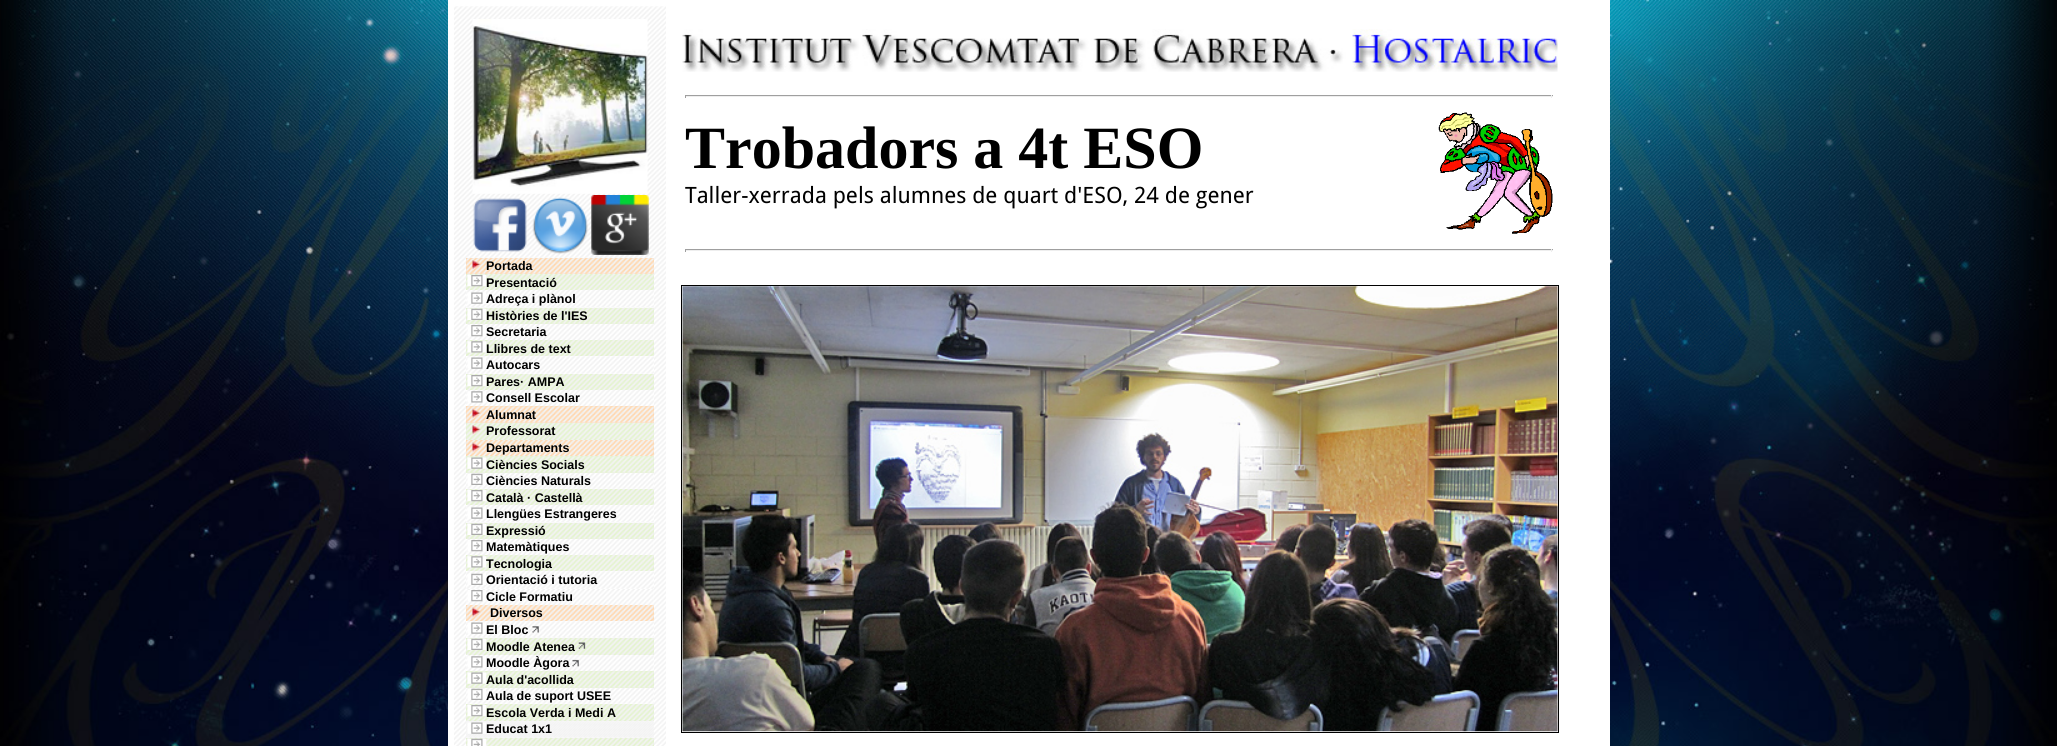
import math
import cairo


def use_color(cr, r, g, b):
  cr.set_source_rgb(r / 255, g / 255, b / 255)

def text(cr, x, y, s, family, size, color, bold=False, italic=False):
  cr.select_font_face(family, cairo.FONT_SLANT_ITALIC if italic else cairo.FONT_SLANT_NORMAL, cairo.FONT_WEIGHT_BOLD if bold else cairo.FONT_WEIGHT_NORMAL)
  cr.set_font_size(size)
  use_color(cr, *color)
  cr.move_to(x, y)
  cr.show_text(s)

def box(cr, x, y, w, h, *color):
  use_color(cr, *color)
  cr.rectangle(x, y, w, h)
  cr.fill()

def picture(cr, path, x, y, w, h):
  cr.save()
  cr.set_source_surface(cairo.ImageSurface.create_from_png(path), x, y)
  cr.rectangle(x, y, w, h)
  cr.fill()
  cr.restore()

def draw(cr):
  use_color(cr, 255, 255, 255)
  cr.paint()
  picture(cr, "img_01.png", 0, 0, 2057, 746)
  box(cr, 448, 0, 1162, 746, 255, 255, 255)
  picture(cr, "img_02.png", 682, 29, 876, 43)
  box(cr, 685, 95, 868, 1, 159, 159, 159)
  box(cr, 1551, 95, 1, 3, 238, 238, 238)
  box(cr, 685, 96, 868, 1, 238, 238, 238)
  box(cr, 685, 95, 1, 3, 159, 159, 159)
  picture(cr, "img_03.png", 1438, 112, 115, 122)
  box(cr, 685, 249, 868, 1, 159, 159, 159)
  box(cr, 1551, 249, 1, 3, 238, 238, 238)
  box(cr, 685, 250, 868, 1, 238, 238, 238)
  box(cr, 685, 249, 1, 3, 159, 159, 159)
  cr.rectangle(681.5, 285.5, 877, 447)
  use_color(cr, 0, 0, 0)
  cr.set_line_width(1)
  cr.stroke()
  picture(cr, "img_04.png", 682, 286, 876, 446)
  picture(cr, "img_05.png", 454, 6, 212, 740)
  picture(cr, "img_06.png", 472, 19, 176, 175)
  picture(cr, "img_07.png", 473, 198, 54, 54)
  picture(cr, "img_08.png", 532, 197, 56, 57)
  picture(cr, "img_09.png", 591, 195, 58, 60)
  box(cr, 466, 258, 188, 16, 255, 216, 176)
  picture(cr, "img_10.png", 466, 258, 188, 16)
  picture(cr, "img_11.png", 472, 260, 9, 10)
  box(cr, 466, 274, 188, 16, 228, 243, 207)
  picture(cr, "img_12.png", 466, 273, 188, 17)
  picture(cr, "img_13.png", 467, 275, 20, 12)
  box(cr, 466, 290, 188, 18, 255, 255, 255)
  picture(cr, "img_14.png", 466, 290, 188, 18)
  picture(cr, "img_15.png", 467, 292, 19, 12)
  box(cr, 466, 308, 188, 16, 228, 243, 207)
  picture(cr, "img_16.png", 466, 307, 188, 17)
  picture(cr, "img_17.png", 467, 308, 20, 12)
  box(cr, 466, 324, 188, 16, 255, 255, 255)
  picture(cr, "img_18.png", 466, 323, 188, 17)
  picture(cr, "img_19.png", 467, 325, 19, 12)
  box(cr, 466, 340, 188, 16, 228, 243, 207)
  picture(cr, "img_20.png", 466, 340, 188, 16)
  picture(cr, "img_21.png", 467, 341, 20, 12)
  box(cr, 466, 356, 188, 18, 255, 255, 255)
  picture(cr, "img_22.png", 466, 356, 188, 18)
  picture(cr, "img_23.png", 467, 357, 19, 12)
  box(cr, 466, 374, 188, 16, 228, 243, 207)
  picture(cr, "img_24.png", 466, 374, 188, 16)
  picture(cr, "img_13.png", 467, 375, 20, 12)
  box(cr, 466, 390, 188, 16, 255, 255, 255)
  picture(cr, "img_25.png", 466, 390, 188, 16)
  picture(cr, "img_26.png", 467, 391, 19, 12)
  box(cr, 466, 406, 188, 17, 255, 216, 176)
  picture(cr, "img_27.png", 466, 406, 188, 17)
  picture(cr, "img_28.png", 472, 408, 9, 11)
  box(cr, 466, 423, 188, 17, 228, 243, 207)
  picture(cr, "img_29.png", 466, 422, 188, 18)
  picture(cr, "img_30.png", 472, 425, 9, 10)
  box(cr, 466, 440, 188, 16, 255, 216, 176)
  picture(cr, "img_31.png", 466, 440, 188, 16)
  picture(cr, "img_32.png", 472, 442, 9, 11)
  box(cr, 466, 456, 188, 17, 228, 243, 207)
  picture(cr, "img_33.png", 466, 456, 188, 17)
  picture(cr, "img_34.png", 467, 457, 20, 12)
  box(cr, 466, 473, 188, 16, 255, 255, 255)
  picture(cr, "img_35.png", 466, 472, 188, 17)
  picture(cr, "img_36.png", 467, 473, 19, 12)
  box(cr, 466, 489, 188, 16, 228, 243, 207)
  picture(cr, "img_24.png", 466, 489, 188, 16)
  picture(cr, "img_13.png", 467, 490, 20, 12)
  box(cr, 466, 505, 188, 18, 255, 255, 255)
  picture(cr, "img_37.png", 466, 505, 188, 18)
  picture(cr, "img_38.png", 467, 507, 19, 12)
  box(cr, 466, 523, 188, 16, 228, 243, 207)
  picture(cr, "img_39.png", 466, 522, 188, 17)
  picture(cr, "img_17.png", 467, 523, 20, 12)
  box(cr, 466, 539, 188, 16, 255, 255, 255)
  picture(cr, "img_18.png", 466, 538, 188, 17)
  picture(cr, "img_19.png", 467, 540, 19, 12)
  box(cr, 466, 555, 188, 16, 228, 243, 207)
  picture(cr, "img_20.png", 466, 555, 188, 16)
  picture(cr, "img_21.png", 467, 556, 20, 12)
  box(cr, 466, 571, 188, 34, 255, 255, 255)
  picture(cr, "img_22.png", 466, 571, 188, 18)
  picture(cr, "img_40.png", 467, 573, 19, 12)
  picture(cr, "img_41.png", 466, 589, 188, 16)
  picture(cr, "img_19.png", 467, 590, 19, 12)
  box(cr, 466, 605, 188, 16, 255, 216, 176)
  picture(cr, "img_31.png", 466, 605, 188, 16)
  picture(cr, "img_32.png", 472, 607, 9, 11)
  box(cr, 466, 621, 188, 17, 255, 255, 255)
  picture(cr, "img_42.png", 466, 621, 188, 17)
  picture(cr, "img_23.png", 467, 622, 19, 12)
  picture(cr, "img_43.png", 532, 626, 7, 7)
  box(cr, 466, 638, 188, 17, 228, 243, 207)
  picture(cr, "img_44.png", 466, 637, 188, 18)
  picture(cr, "img_17.png", 467, 638, 20, 12)
  picture(cr, "img_45.png", 578, 642, 8, 7)
  box(cr, 466, 655, 188, 16, 255, 255, 255)
  picture(cr, "img_25.png", 466, 655, 188, 16)
  picture(cr, "img_26.png", 467, 656, 19, 12)
  picture(cr, "img_46.png", 572, 659, 7, 8)
  box(cr, 466, 671, 188, 17, 228, 243, 207)
  picture(cr, "img_33.png", 466, 671, 188, 17)
  picture(cr, "img_34.png", 467, 672, 20, 12)
  box(cr, 466, 688, 188, 16, 255, 255, 255)
  picture(cr, "img_35.png", 466, 687, 188, 17)
  picture(cr, "img_36.png", 467, 688, 19, 12)
  box(cr, 466, 704, 188, 17, 228, 243, 207)
  picture(cr, "img_47.png", 466, 704, 188, 17)
  picture(cr, "img_13.png", 467, 705, 20, 12)
  picture(cr, "img_48.png", 466, 721, 188, 17)
  picture(cr, "img_49.png", 467, 722, 19, 12)
  box(cr, 466, 738, 188, 8, 228, 243, 207)
  picture(cr, "img_50.png", 466, 738, 188, 8)
  picture(cr, "img_51.png", 467, 738, 20, 8)
  text(cr, 685, 168, "Trobadors a 4t ESO", "Liberation Serif", 60, (0, 0, 0), bold=True)
  text(cr, 685, 203, "Taller-xerrada pels alumnes de quart d'ESO, 24 de gener", "Droid Sans", 22.5, (0, 0, 0))
  text(cr, 486, 270, "Portada", "Liberation Sans", 12.5, (0, 0, 0), bold=True)
  text(cr, 486, 287, "Presentació", "Liberation Sans", 12.5, (0, 0, 0), bold=True)
  text(cr, 486, 303, "Adreça i plànol", "Liberation Sans", 12.5, (0, 0, 0), bold=True)
  text(cr, 486, 320, "Històries de l'IES", "Liberation Sans", 12.5, (0, 0, 0), bold=True)
  text(cr, 486, 336, "Secretaria", "Liberation Sans", 12.5, (0, 0, 0), bold=True)
  text(cr, 486, 353, "Llibres de text", "Liberation Sans", 12.5, (0, 0, 0), bold=True)
  text(cr, 486, 369, "Autocars", "Liberation Sans", 12.5, (0, 0, 0), bold=True)
  text(cr, 486, 386, "Pares· AMPA", "Liberation Sans", 12.5, (0, 0, 0), bold=True)
  text(cr, 486, 402, "Consell Escolar", "Liberation Sans", 12.5, (0, 0, 0), bold=True)
  text(cr, 486, 419, "Alumnat", "Liberation Sans", 12.5, (0, 0, 0), bold=True)
  text(cr, 486, 435, "Professorat", "Liberation Sans", 12.5, (0, 0, 0), bold=True)
  text(cr, 486, 452, "Departaments", "Liberation Sans", 12.5, (0, 0, 0), bold=True)
  text(cr, 486, 469, "Ciències Socials", "Liberation Sans", 12.5, (0, 0, 0), bold=True)
  text(cr, 486, 485, "Ciències Naturals", "Liberation Sans", 12.5, (0, 0, 0), bold=True)
  text(cr, 486, 502, "Català · Castellà", "Liberation Sans", 12.5, (0, 0, 0), bold=True)
  text(cr, 486, 518, "Llengües Estrangeres", "Liberation Sans", 12.5, (0, 0, 0), bold=True)
  text(cr, 486, 535, "Expressió", "Liberation Sans", 12.5, (0, 0, 0), bold=True)
  text(cr, 486, 551, "Matemàtiques", "Liberation Sans", 12.5, (0, 0, 0), bold=True)
  text(cr, 486, 568, "Tecnologia", "Liberation Sans", 12.5, (0, 0, 0), bold=True)
  text(cr, 486, 584, "Orientació i tutoria", "Liberation Sans", 12.5, (0, 0, 0), bold=True)
  text(cr, 486, 601, "Cicle Formatiu", "Liberation Sans", 12.5, (0, 0, 0), bold=True)
  text(cr, 490, 617, "Diversos", "Liberation Sans", 12.5, (0, 0, 0), bold=True)
  text(cr, 486, 634, "El Bloc", "Liberation Sans", 12.5, (0, 0, 0), bold=True)
  text(cr, 486, 651, "Moodle Atenea", "Liberation Sans", 12.5, (0, 0, 0), bold=True)
  text(cr, 486, 667, "Moodle Àgora", "Liberation Sans", 12.5, (0, 0, 0), bold=True)
  text(cr, 486, 684, "Aula d'acollida", "Liberation Sans", 12.5, (0, 0, 0), bold=True)
  text(cr, 486, 700, "Aula de suport USEE", "Liberation Sans", 12.5, (0, 0, 0), bold=True)
  text(cr, 486, 717, "Escola Verda i Medi A", "Liberation Sans", 12.5, (0, 0, 0), bold=True)
  text(cr, 486, 733, "Educat 1x1", "Liberation Sans", 12.5, (0, 0, 0), bold=True)


surface = cairo.ImageSurface(cairo.FORMAT_RGB24, 2057, 746)
cr = cairo.Context(surface)
options = cairo.FontOptions()
options.set_hint_metrics(cairo.HINT_METRICS_OFF)
options.set_hint_style(cairo.HINT_STYLE_NONE)
cr.set_font_options(options)
cr.set_miter_limit(4)
draw(cr)
surface.write_to_png("out.png")
